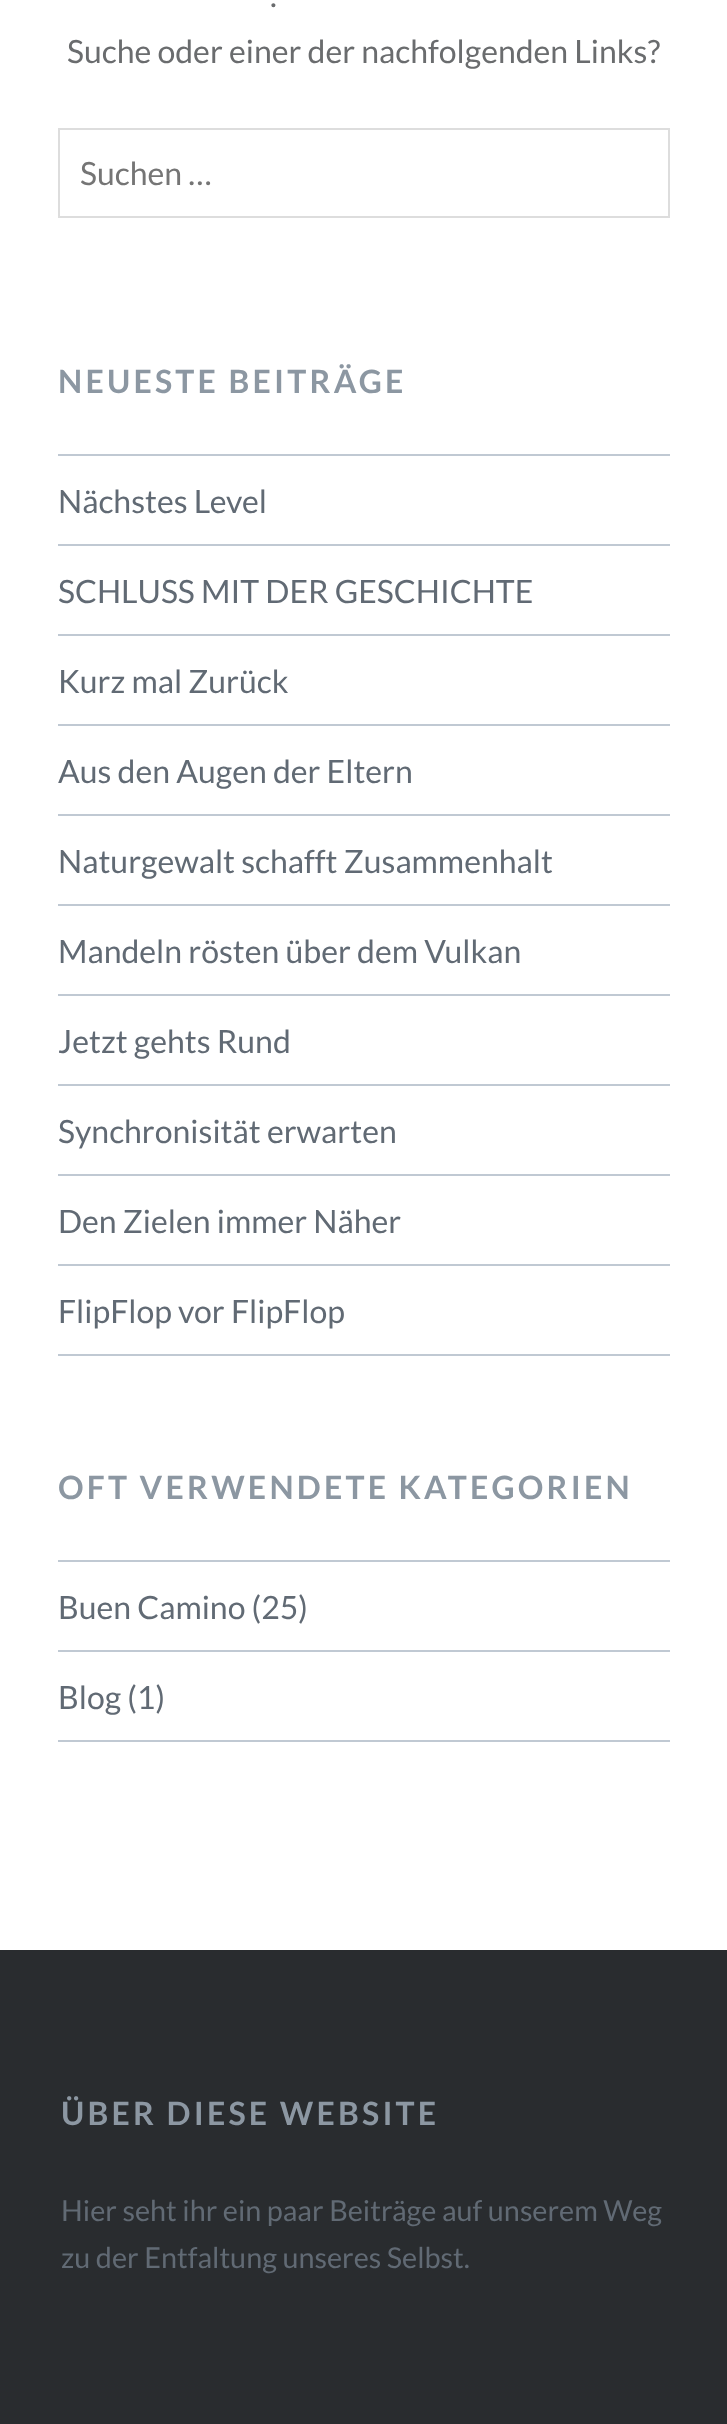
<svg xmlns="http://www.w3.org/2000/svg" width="727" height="2424">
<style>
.a{font:32px Lato;fill:#6a6c6e}
.b{font:32px Lato;fill:#757575}
.c{font:bold 32px Lato;letter-spacing:3.2px;fill:#8c97a2}
.d{font:32px Lato;fill:#616a74}
.e{font:28.8px Lato;fill:#616a74}
</style>
<rect width="100%" height="100%" fill="#fff"/>
<path fill="none" stroke="#ddd" stroke-width="2" d="M59 129h610v88H59z"/>
<path fill="#c0c9d3" d="M58 454h612v2H58z"/>
<path fill="#c0c9d3" d="M58 544h612v2H58z"/>
<path fill="#c0c9d3" d="M58 634h612v2H58z"/>
<path fill="#c0c9d3" d="M58 724h612v2H58z"/>
<path fill="#c0c9d3" d="M58 814h612v2H58z"/>
<path fill="#c0c9d3" d="M58 904h612v2H58z"/>
<path fill="#c0c9d3" d="M58 994h612v2H58z"/>
<path fill="#c0c9d3" d="M58 1084h612v2H58z"/>
<path fill="#c0c9d3" d="M58 1174h612v2H58z"/>
<path fill="#c0c9d3" d="M58 1264h612v2H58z"/>
<path fill="#c0c9d3" d="M58 1354h612v2H58z"/>
<path fill="#c0c9d3" d="M58 1560h612v2H58z"/>
<path fill="#c0c9d3" d="M58 1650h612v2H58z"/>
<path fill="#c0c9d3" d="M58 1740h612v2H58z"/>
<path fill="#292c2f" d="M0 1950h727v474H0z"/>
<text class="a" x="270" y="7">.</text>
<text class="a" x="67" y="63">Suche oder einer der nachfolgenden Links?</text>
<text class="b" x="80" y="185">Suchen …</text>
<text class="c" x="58" y="393">NEUESTE BEITRÄGE</text>
<text class="d" x="58" y="513">Nächstes Level</text>
<text class="d" x="58" y="603">SCHLUSS MIT DER GESCHICHTE</text>
<text class="d" x="58" y="693">Kurz mal Zurück</text>
<text class="d" x="58" y="783">Aus den Augen der Eltern</text>
<text class="d" x="58" y="873">Naturgewalt schafft Zusammenhalt</text>
<text class="d" x="58" y="963">Mandeln rösten über dem Vulkan</text>
<text class="d" x="58" y="1053">Jetzt gehts Rund</text>
<text class="d" x="58" y="1143">Synchronisität erwarten</text>
<text class="d" x="58" y="1233">Den Zielen immer Näher</text>
<text class="d" x="58" y="1323">FlipFlop vor FlipFlop</text>
<text class="c" x="58" y="1499">OFT VERWENDETE KATEGORIEN</text>
<text class="d" x="58" y="1619">Buen Camino (25)</text>
<text class="d" x="58" y="1709">Blog (1)</text>
<text class="c" x="61" y="2125">ÜBER DIESE WEBSITE</text>
<text class="e" x="61" y="2221">Hier seht ihr ein paar Beiträge auf unserem Weg</text>
<text class="e" x="61" y="2268">zu der Entfaltung unseres Selbst.</text>
</svg>
